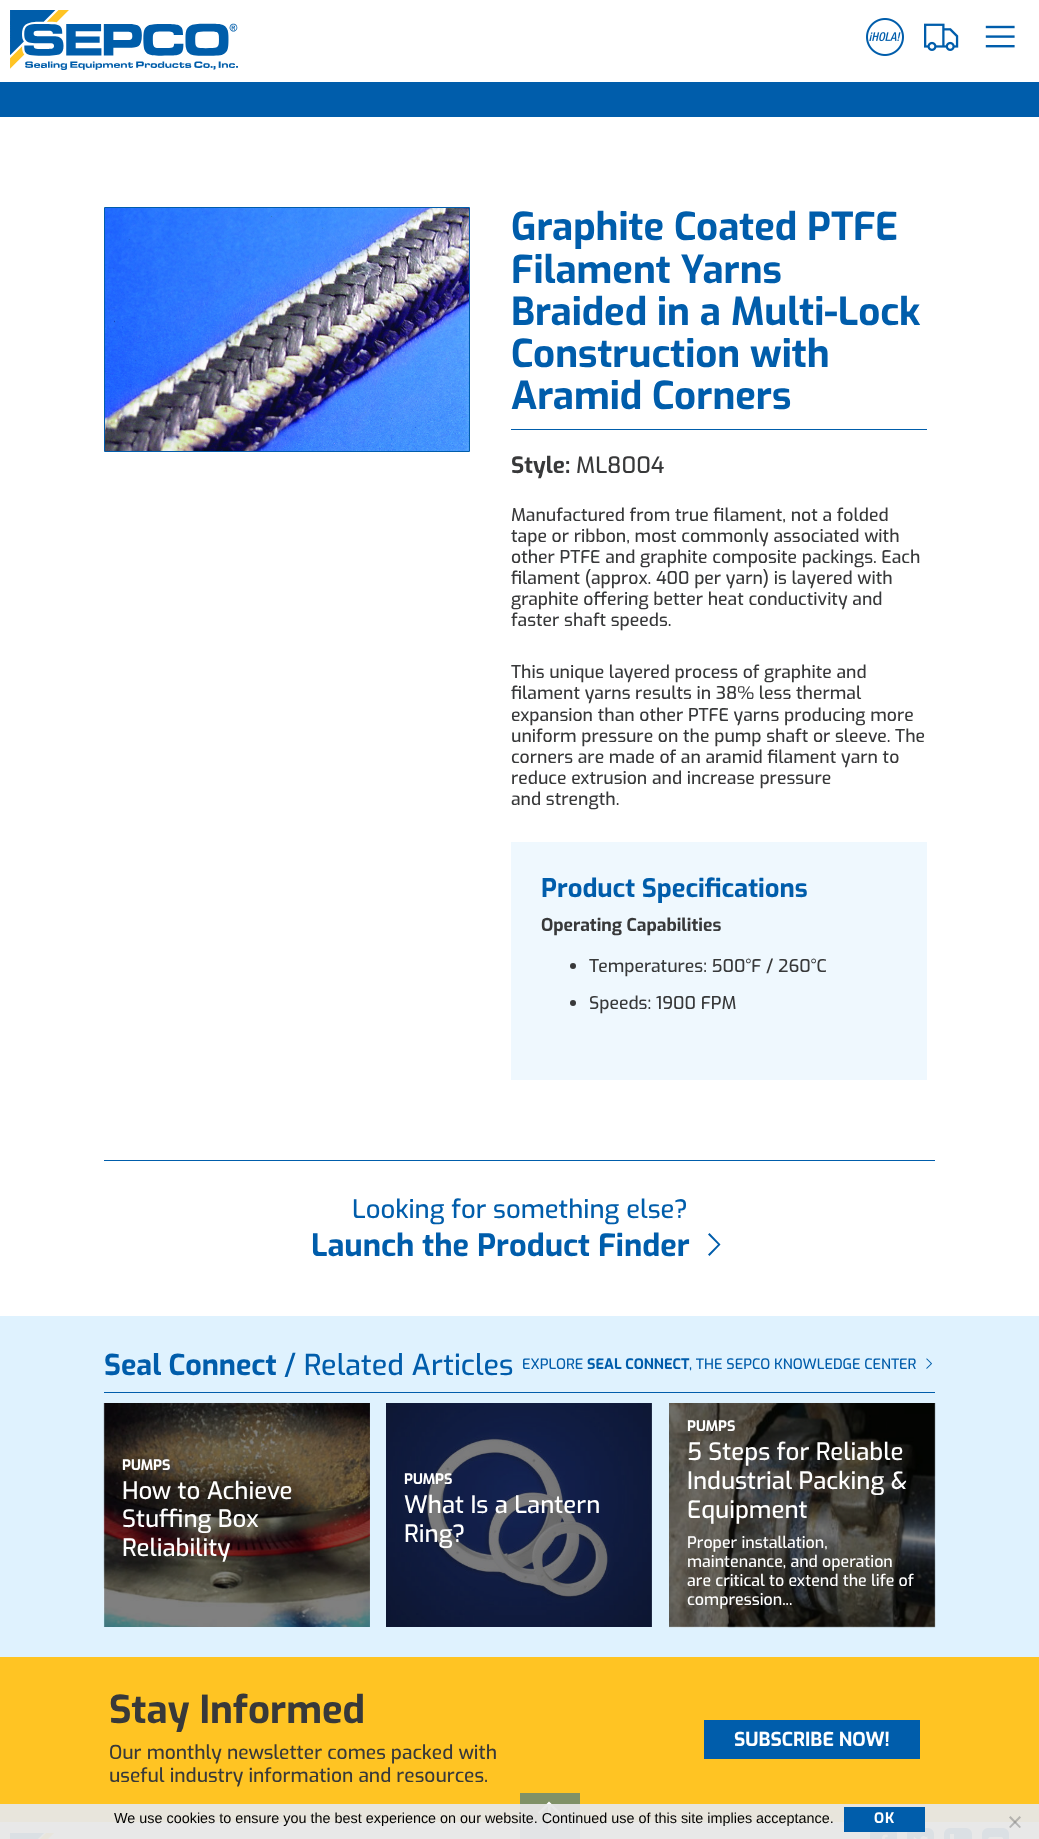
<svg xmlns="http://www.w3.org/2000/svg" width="1039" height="1839">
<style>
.a{font:bold 38.4px Exo;fill:#005dab}
.b{font:bold 22.5px Exo;fill:#38393a}
.c{font:500 22.5px Exo;fill:#38393a}
.d{font:500 17.6px Exo;fill:#38393a}
.e{font:bold 25.6px Exo;fill:#005dab}
.f{font:bold 17.6px Exo;fill:#38393a}
.g{font:500 25.6px Exo;fill:#005dab}
.h{font:bold 30.75px Exo;fill:#005dab}
.i{font:bold 28.75px Exo;fill:#005dab}
.j{font:500 28.75px Exo;fill:#005dab}
.k{font:500 14.4px Exo;fill:#005dab}
.l{font:bold 14.4px Exo;fill:#005dab}
.m{font:bold 14.4px Exo;fill:#fff}
.n{font:500 24px Exo;fill:#fff}
.o{font:500 16px Exo;fill:#fff}
.p{font:bold 38.4px Exo;fill:#38393a}
.q{font:500 19.2px Exo;fill:#38393a}
.r{font:bold 19.2px Exo;fill:#fff}
.s{font:14.4px Liberation Sans;fill:#000}
.t{font:bold 14.4px Exo;letter-spacing:1px;fill:#fff}
</style>
<rect width="100%" height="100%" fill="#fff"/>
<path fill="#80aed5" d="M520 1822h60v17H520z"/>
<image href="1.png" x="10" y="10" width="228" height="60"/>
<image href="2.png" x="866" y="18" width="38" height="38"/>
<image href="3.png" x="924" y="23" width="35" height="28"/>
<image href="4.png" x="985" y="25" width="30" height="23"/>
<path fill="#005dab" d="M0 82h1039v35H0z"/>
<path fill="none" stroke="#005dab" d="M104.5 207.5h365v244H104.5z"/>
<image href="5.png" x="105" y="208" width="364" height="243"/>
<path fill="#005dab" d="M511 429h416v1H511z"/>
<path fill="#eff8fe" d="M511 842h416v238H511z"/>
<circle fill="#38393a" cx="573" cy="966" r="3"/>
<circle fill="#38393a" cx="573" cy="1003" r="3"/>
<path fill="#005dab" d="M104 1160h831v1H104z"/>
<path fill="#005dab" d="M709.5 1233l11 11.5l-11 11.5l-1.5-1.5l10-10l-10-10z"/>
<path fill="#dff2fe" d="M0 1316h1039v341H0z"/>
<path fill="#005dab" d="M104 1392h831v1H104z"/>
<image href="6.png" x="926" y="1358" width="6" height="11"/>
<image href="7.png" x="103" y="1403" width="267" height="224"/>
<image href="8.png" x="386" y="1403" width="266" height="224"/>
<image href="9.png" x="669" y="1403" width="267" height="225"/>
<path fill="#ffc423" d="M0 1657h1039v165H0z"/>
<path fill="#809167" d="M520 1793h60v29H520z"/>
<path fill="#005dab" d="M704 1720h216v39H704z"/>
<path fill="#fff" d="M549 1801.5l11.5 11l-2 1.5l-8-8v24h-2.5v-24l-8 8l-2-1.5z"/>
<image href="10.png" x="10" y="1833" width="44" height="6"/>
<rect fill="#005dab" x="870" y="1828" width="27" height="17" rx="6"/>
<image href="11.png" x="882" y="1834" width="6" height="5"/>
<rect fill="#005dab" x="907" y="1828" width="27" height="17" rx="6"/>
<image href="12.png" x="913" y="1836" width="16" height="3"/>
<rect fill="#005dab" x="944" y="1828" width="28" height="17" rx="6"/>
<path fill="#fff" d="M950 1834h4v5H950z"/>
<rect fill="#005dab" x="982" y="1828" width="27" height="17" rx="6"/>
<image href="13.png" x="988" y="1836" width="16" height="3"/>
<path fill="#e7e7e7f2" d="M0 1804h1039v35H0z"/>
<path fill="#005dab" d="M844 1807h81v25H844z"/>
<path fill="#80808080" d="M1019.5 1816l1.5 1.5l-10.5 10.5l-1.5-1z"/>
<path fill="#80808080" d="M1009 1817.5l1.5-1.5l10.5 11l-1.5 1z"/>
<text class="a" x="511" y="240">Graphite Coated PTFE</text>
<text class="a" x="511" y="283">Filament Yarns</text>
<text class="a" x="511" y="325">Braided in a Multi-Lock</text>
<text class="a" x="511" y="367">Construction with</text>
<text class="a" x="511" y="409">Aramid Corners</text>
<text class="b" x="511" y="473">Style:</text>
<text class="c" x="576" y="473">ML8004</text>
<text class="d" x="511" y="521">Manufactured from true filament, not a folded</text>
<text class="d" x="511" y="542">tape or ribbon, most commonly associated with</text>
<text class="d" x="511" y="563">other PTFE and graphite composite packings. Each</text>
<text class="d" x="511" y="584">filament (approx. 400 per yarn) is layered with</text>
<text class="d" x="511" y="605">graphite offering better heat conductivity and</text>
<text class="d" x="511" y="626">faster shaft speeds.</text>
<text class="d" x="511" y="678">This unique layered process of graphite and</text>
<text class="d" x="511" y="699">filament yarns results in 38% less thermal</text>
<text class="d" x="511" y="721">expansion than other PTFE yarns producing more</text>
<text class="d" x="511" y="742">uniform pressure on the pump shaft or sleeve. The</text>
<text class="d" x="511" y="763">corners are made of an aramid filament yarn to</text>
<text class="d" x="511" y="784">reduce extrusion and increase pressure</text>
<text class="d" x="511" y="805">and strength.</text>
<text class="e" x="541" y="897">Product Specifications</text>
<text class="f" x="541" y="931">Operating Capabilities</text>
<text class="d" x="589" y="972">Temperatures: 500°F / 260°C</text>
<text class="d" x="589" y="1009">Speeds: 1900 FPM</text>
<text class="g" x="352" y="1218">Looking for something else?</text>
<text class="h" x="311" y="1256">Launch the Product Finder</text>
<text class="i" x="104" y="1375">Seal Connect</text>
<text class="j" x="284" y="1375">/ Related Articles</text>
<text class="k" x="522" y="1369">EXPLORE</text>
<text class="l" x="587" y="1369">SEAL CONNECT</text>
<text class="k" x="689" y="1369">, THE SEPCO KNOWLEDGE CENTER</text>
<text class="m" x="122" y="1470">PUMPS</text>
<text class="n" x="122" y="1499">How to Achieve</text>
<text class="n" x="122" y="1527">Stuffing Box</text>
<text class="n" x="122" y="1556">Reliability</text>
<text class="m" x="404" y="1484">PUMPS</text>
<text class="n" x="404" y="1513">What Is a Lantern</text>
<text class="n" x="404" y="1542">Ring?</text>
<text class="m" x="687" y="1431">PUMPS</text>
<text class="n" x="687" y="1460">5 Steps for Reliable</text>
<text class="n" x="687" y="1489">Industrial Packing &amp;</text>
<text class="n" x="687" y="1518">Equipment</text>
<text class="o" x="687" y="1548">Proper installation,</text>
<text class="o" x="687" y="1567">maintenance, and operation</text>
<text class="o" x="687" y="1586">are critical to extend the life of</text>
<text class="o" x="687" y="1605">compression...</text>
<text class="p" x="109" y="1723">Stay Informed</text>
<text class="q" x="109" y="1759">Our monthly newsletter comes packed with</text>
<text class="q" x="109" y="1782">useful industry information and resources.</text>
<text class="r" x="734" y="1746">SUBSCRIBE NOW!</text>
<text class="s" x="114" y="1823">We use cookies to ensure you the best experience on our website. Continued use of this site implies acceptance.</text>
<text class="t" x="874" y="1823">OK</text>
</svg>
